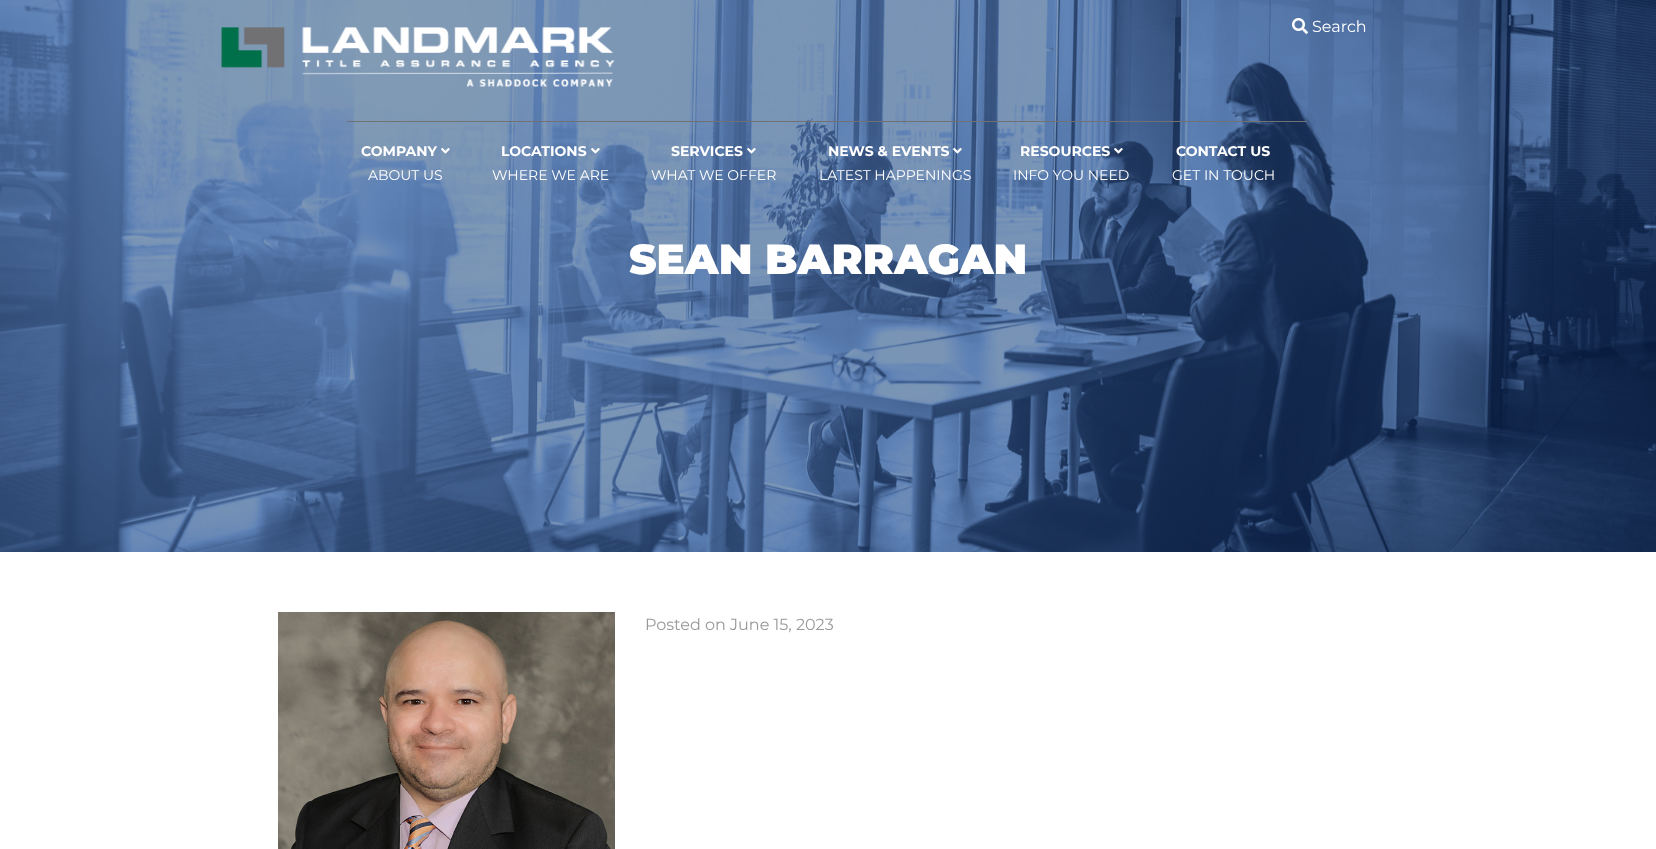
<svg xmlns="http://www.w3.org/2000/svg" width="1656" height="849">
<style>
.a{font:16px Montserrat;fill:#fff}
.b{font:bold 14px Montserrat;fill:#fff}
.c{font:14px Montserrat;fill:#fff}
.d{font:900 42px Montserrat;fill:#fff}
.e{font:16px Montserrat;fill:#999}
</style>
<rect width="100%" height="100%" fill="#fff"/>
<image href="8.png" x="0" y="0" width="1656" height="552"/>
<image href="1.png" x="221" y="27" width="394" height="60"/>
<image href="2.png" x="1292" y="18" width="16" height="16"/>
<path fill="#717174" d="M347 121h960v1H347z"/>
<image href="3.png" x="441" y="148" width="9" height="6"/>
<image href="4.png" x="591" y="148" width="9" height="6"/>
<image href="5.png" x="747" y="148" width="9" height="6"/>
<image href="6.png" x="953" y="148" width="9" height="6"/>
<image href="7.png" x="1114" y="148" width="9" height="6"/>
<image href="9.png" x="278" y="612" width="337" height="237"/>
<text class="a" x="1312" y="32">Search</text>
<text class="b" x="361" y="156">COMPANY</text>
<text class="c" x="368" y="180">ABOUT US</text>
<text class="b" x="501" y="156">LOCATIONS</text>
<text class="c" x="492" y="180">WHERE WE ARE</text>
<text class="b" x="671" y="156">SERVICES</text>
<text class="c" x="651" y="180">WHAT WE OFFER</text>
<text class="b" x="828" y="156">NEWS &amp; EVENTS</text>
<text class="c" x="819" y="180">LATEST HAPPENINGS</text>
<text class="b" x="1020" y="156">RESOURCES</text>
<text class="c" x="1013" y="180">INFO YOU NEED</text>
<text class="b" x="1176" y="156">CONTACT US</text>
<text class="c" x="1172" y="180">GET IN TOUCH</text>
<text class="d" x="629" y="274">SEAN BARRAGAN</text>
<text class="e" x="645" y="630">Posted on June 15, 2023</text>
</svg>
